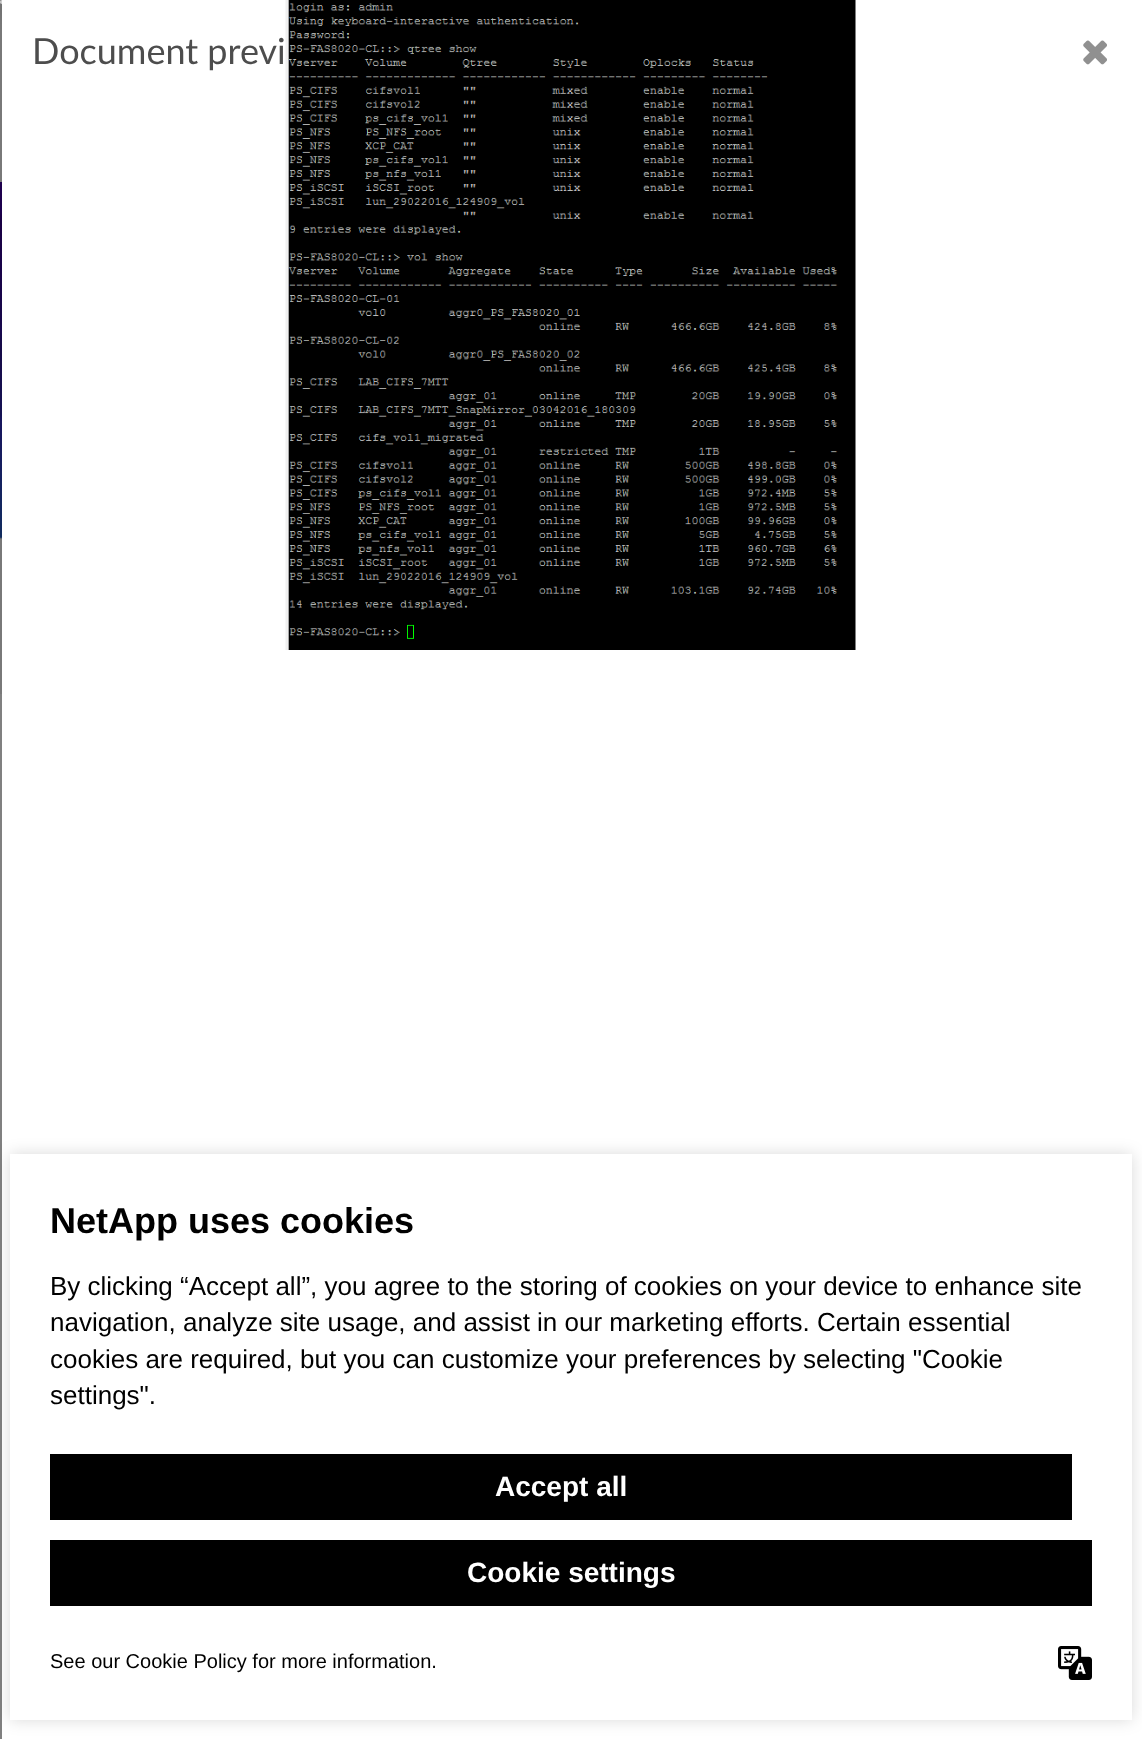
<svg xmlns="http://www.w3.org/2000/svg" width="1142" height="1739">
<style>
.a{font:36px Lato;fill:#4d4d4d}
.b{font:bold 36px Liberation Sans;fill:#000}
.c{font:26px Liberation Sans;fill:#000}
.d{font:bold 28px Liberation Sans;fill:#fff}
.e{font:20px Liberation Sans;fill:#000}
</style>
<rect width="100%" height="100%" fill="#808080"/>
<path fill="#797979" d="M0 0h2v182H0z"/>
<path fill="#797979" d="M0 537h2v157H0z"/>
<image href="1.png" x="0" y="182" width="2" height="357"/>
<rect fill="#00000080" filter="blur(9px)" y="6" width="1142" height="4" rx="2"/>
<rect fill="#d1d1d1" width="1142" height="4" rx="2"/>
<path fill="#fff" d="M2 0h1140v1739H2z"/>
<image href="2.png" x="285" y="0" width="571" height="650"/>
<image href="3.png" x="1083" y="40" width="24" height="25"/>
<path fill="#00000026" filter="blur(8px)" d="M10 1154h1122v566H10z"/>
<path fill="#fff" d="M10 1154h1122v566H10z"/>
<path fill="#000" d="M50 1454h1022v66H50z"/>
<path fill="#000" d="M50 1540h1042v66H50z"/>
<image href="4.png" x="1058" y="1646" width="34" height="34"/>
<text class="a" x="32" y="64">Document previ</text>
<text class="b" x="50" y="1233">NetApp uses cookies</text>
<text class="c" x="50" y="1295">By clicking “Accept all”, you agree to the storing of cookies on your device to enhance site</text>
<text class="c" x="50" y="1331">navigation, analyze site usage, and assist in our marketing efforts. Certain essential</text>
<text class="c" x="50" y="1368">cookies are required, but you can customize your preferences by selecting "Cookie</text>
<text class="c" x="50" y="1404">settings".</text>
<text class="d" x="495" y="1496">Accept all</text>
<text class="d" x="467" y="1582">Cookie settings</text>
<text class="e" x="50" y="1668">See our Cookie Policy for more information.</text>
</svg>
